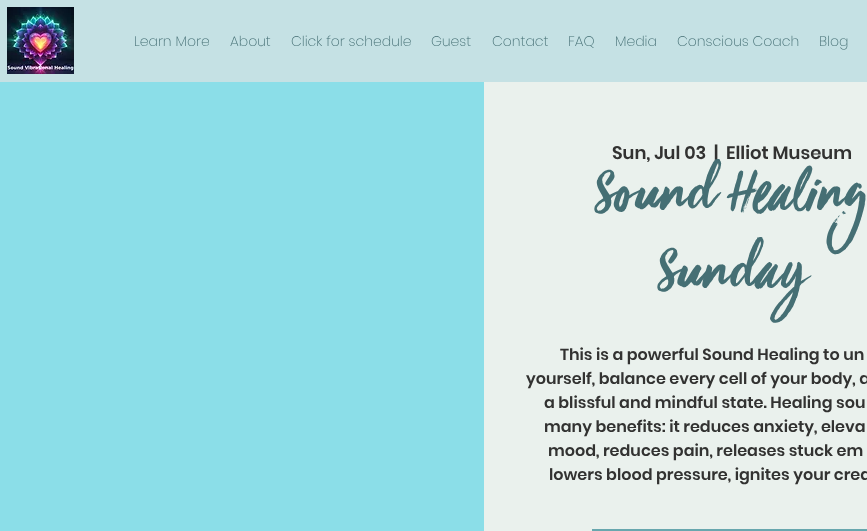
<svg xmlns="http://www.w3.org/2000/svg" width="867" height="531">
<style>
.a{font:200 14px Poppins;fill:#456f74}
.b{font:600 18px Poppins;fill:#323231}
.c{font:65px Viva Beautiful;fill:#456f74}
.d{font:600 16px Poppins;fill:#323231}
</style>
<rect width="100%" height="100%" fill="#8bdee8"/>
<path fill="#c5e1e4" d="M0 0h867v82H0z"/>
<image href="1.png" x="7" y="7" width="67" height="67"/>
<path fill="#eaf1ed" d="M484 82h383v449H484z"/>
<path fill="#68a7ae" d="M592 529h275v2H592z"/>
<text class="a" x="134" y="46">Learn More</text>
<text class="a" x="230" y="46">About</text>
<text class="a" x="291" y="46">Click for schedule</text>
<text class="a" x="431" y="46">Guest</text>
<text class="a" x="492" y="46">Contact</text>
<text class="a" x="568" y="46">FAQ</text>
<text class="a" x="615" y="46">Media</text>
<text class="a" x="677" y="46">Conscious Coach</text>
<text class="a" x="819" y="46">Blog</text>
<text class="b" x="612" y="159">Sun, Jul 03</text>
<text class="b" x="714" y="159">|</text>
<text class="b" x="726" y="159">Elliot Museum</text>
<text class="c" x="595" y="209">Sound Healing</text>
<text class="c" x="658" y="287">Sunday</text>
<text class="d" x="560" y="360">This is a powerful Sound Healing to un</text>
<text class="d" x="526" y="384">yourself, balance every cell of your body, a</text>
<text class="d" x="544" y="408">a blissful and mindful state. Healing sou</text>
<text class="d" x="544" y="432">many benefits: it reduces anxiety, eleva</text>
<text class="d" x="548" y="456">mood, reduces pain, releases stuck em</text>
<text class="d" x="549" y="480">lowers blood pressure, ignites your crea</text>
</svg>
